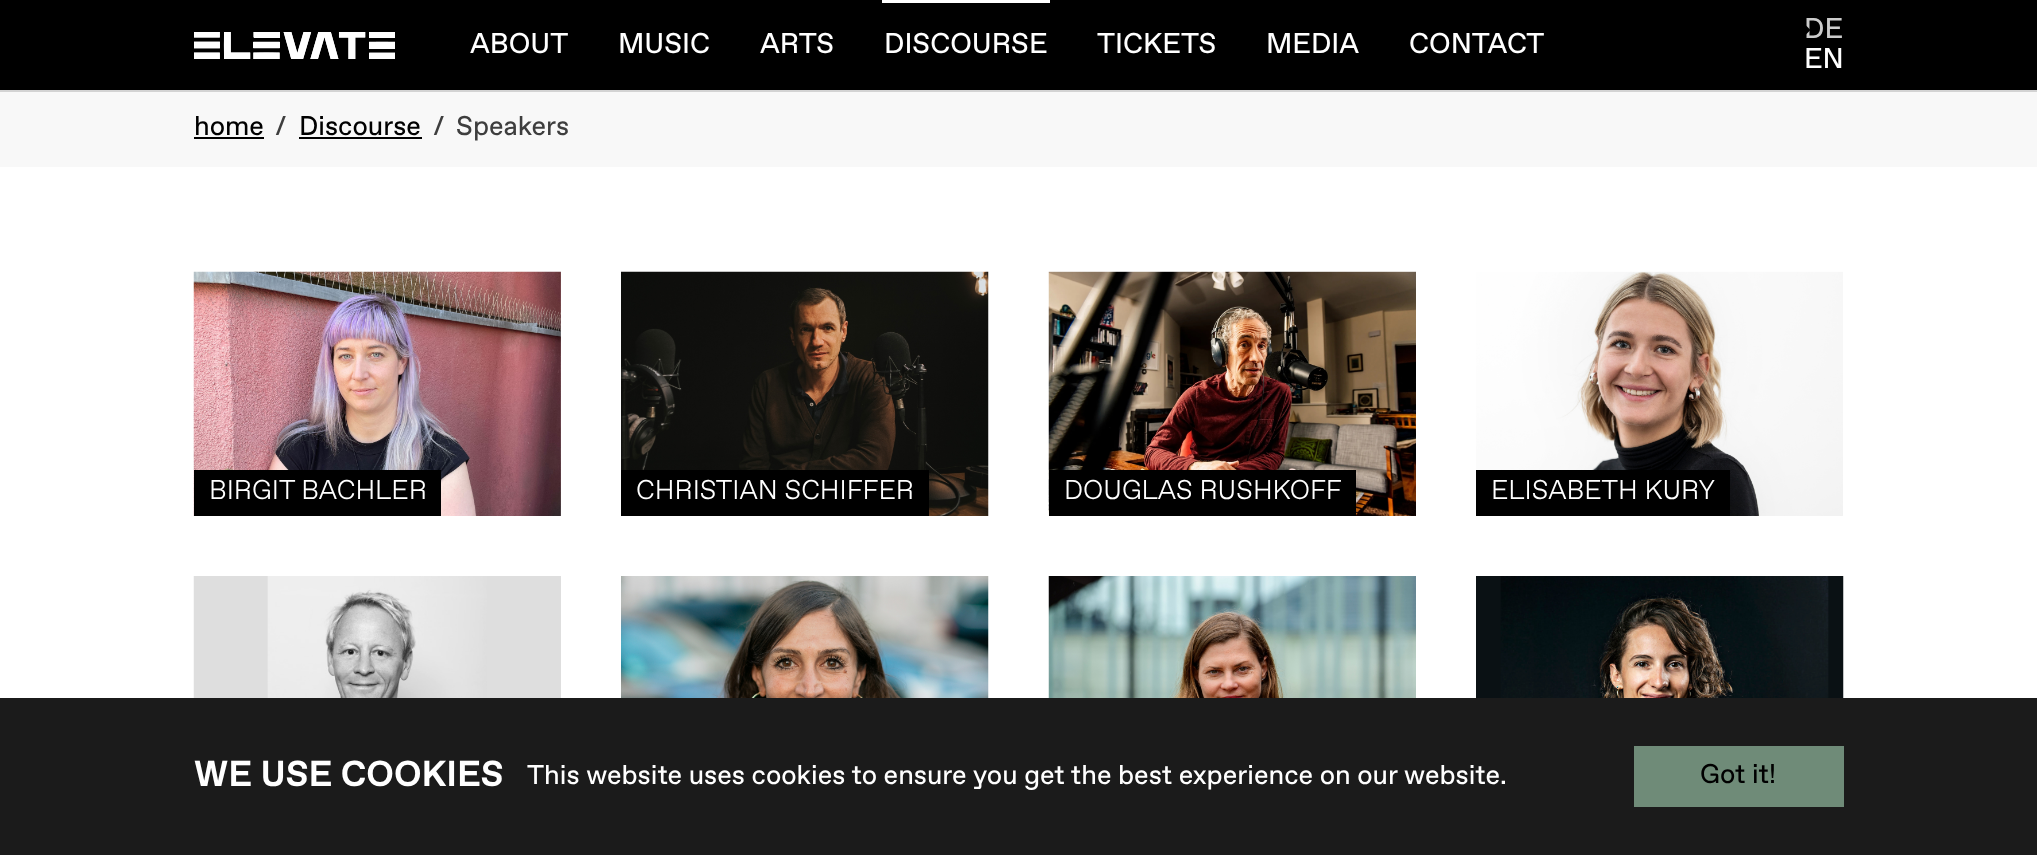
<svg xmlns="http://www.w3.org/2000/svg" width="2037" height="855">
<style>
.a{font:28.5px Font;fill:#fff}
.b{font:28.5px Font;fill:#ccc}
.c{font:27px Font;fill:#000}
.d{font:27px Font;fill:#3e3e3e}
.e{font:300 27px Font;fill:#fff}
.f{font:bold 36px Font;fill:#fff}
.g{font:27px Font;fill:#fff}
</style>
<rect width="100%" height="100%" fill="#fff"/>
<path fill="#d3d3d3" d="M0 90h2037v2H0z"/>
<path fill="#000" d="M0 0h2037v90H0z"/>
<image href="1.png" x="194" y="32" width="201" height="27"/>
<path fill="#fff" d="M882 0h168v3H882z"/>
<path fill="#f8f8f8" d="M0 92h2037v75H0z"/>
<path fill="#000" d="M194 137h70v2H194z"/>
<path fill="#000" d="M299 137h123v2H299z"/>
<image href="2.png" x="193" y="271" width="368" height="245"/>
<path fill="#000" d="M194 470h247v46H194z"/>
<image href="3.png" x="621" y="271" width="368" height="245"/>
<path fill="#000" d="M621 470h308v46H621z"/>
<image href="4.png" x="1048" y="271" width="368" height="245"/>
<path fill="#000" d="M1049 470h307v46H1049z"/>
<image href="5.png" x="1476" y="271" width="367" height="245"/>
<path fill="#000" d="M1476 470h254v46H1476z"/>
<image href="6.png" x="193" y="576" width="368" height="122"/>
<image href="7.png" x="621" y="576" width="368" height="122"/>
<image href="8.png" x="1048" y="576" width="368" height="122"/>
<image href="9.png" x="1476" y="576" width="368" height="122"/>
<path fill="#1b1b1b" d="M0 698h2037v157H0z"/>
<path fill="#6f8b78" d="M1634 746h210v61H1634z"/>
<text class="a" x="470" y="53">ABOUT</text>
<text class="a" x="618" y="53">MUSIC</text>
<text class="a" x="760" y="53">ARTS</text>
<text class="a" x="884" y="53">DISCOURSE</text>
<text class="a" x="1097" y="53">TICKETS</text>
<text class="a" x="1266" y="53">MEDIA</text>
<text class="a" x="1409" y="53">CONTACT</text>
<text class="b" x="1804" y="38">DE</text>
<path fill="#000" d="M1804.5 36v-12l6 6z"/>
<text class="a" x="1804" y="68">EN</text>
<text class="c" x="194" y="135">home</text>
<text class="d" x="275" y="135">/</text>
<text class="c" x="299" y="135">Discourse</text>
<text class="d" x="433" y="135">/</text>
<text class="d" x="456" y="135">Speakers</text>
<text class="e" x="209" y="499">BIRGIT BACHLER</text>
<text class="e" x="636" y="499">CHRISTIAN SCHIFFER</text>
<text class="e" x="1064" y="499">DOUGLAS RUSHKOFF</text>
<text class="e" x="1491" y="499">ELISABETH KURY</text>
<text class="f" x="194" y="786">WE USE COOKIES</text>
<text class="g" x="527" y="784">This website uses cookies to ensure you get the best experience on our website.</text>
<text class="c" x="1700" y="783">Got it!</text>
</svg>
